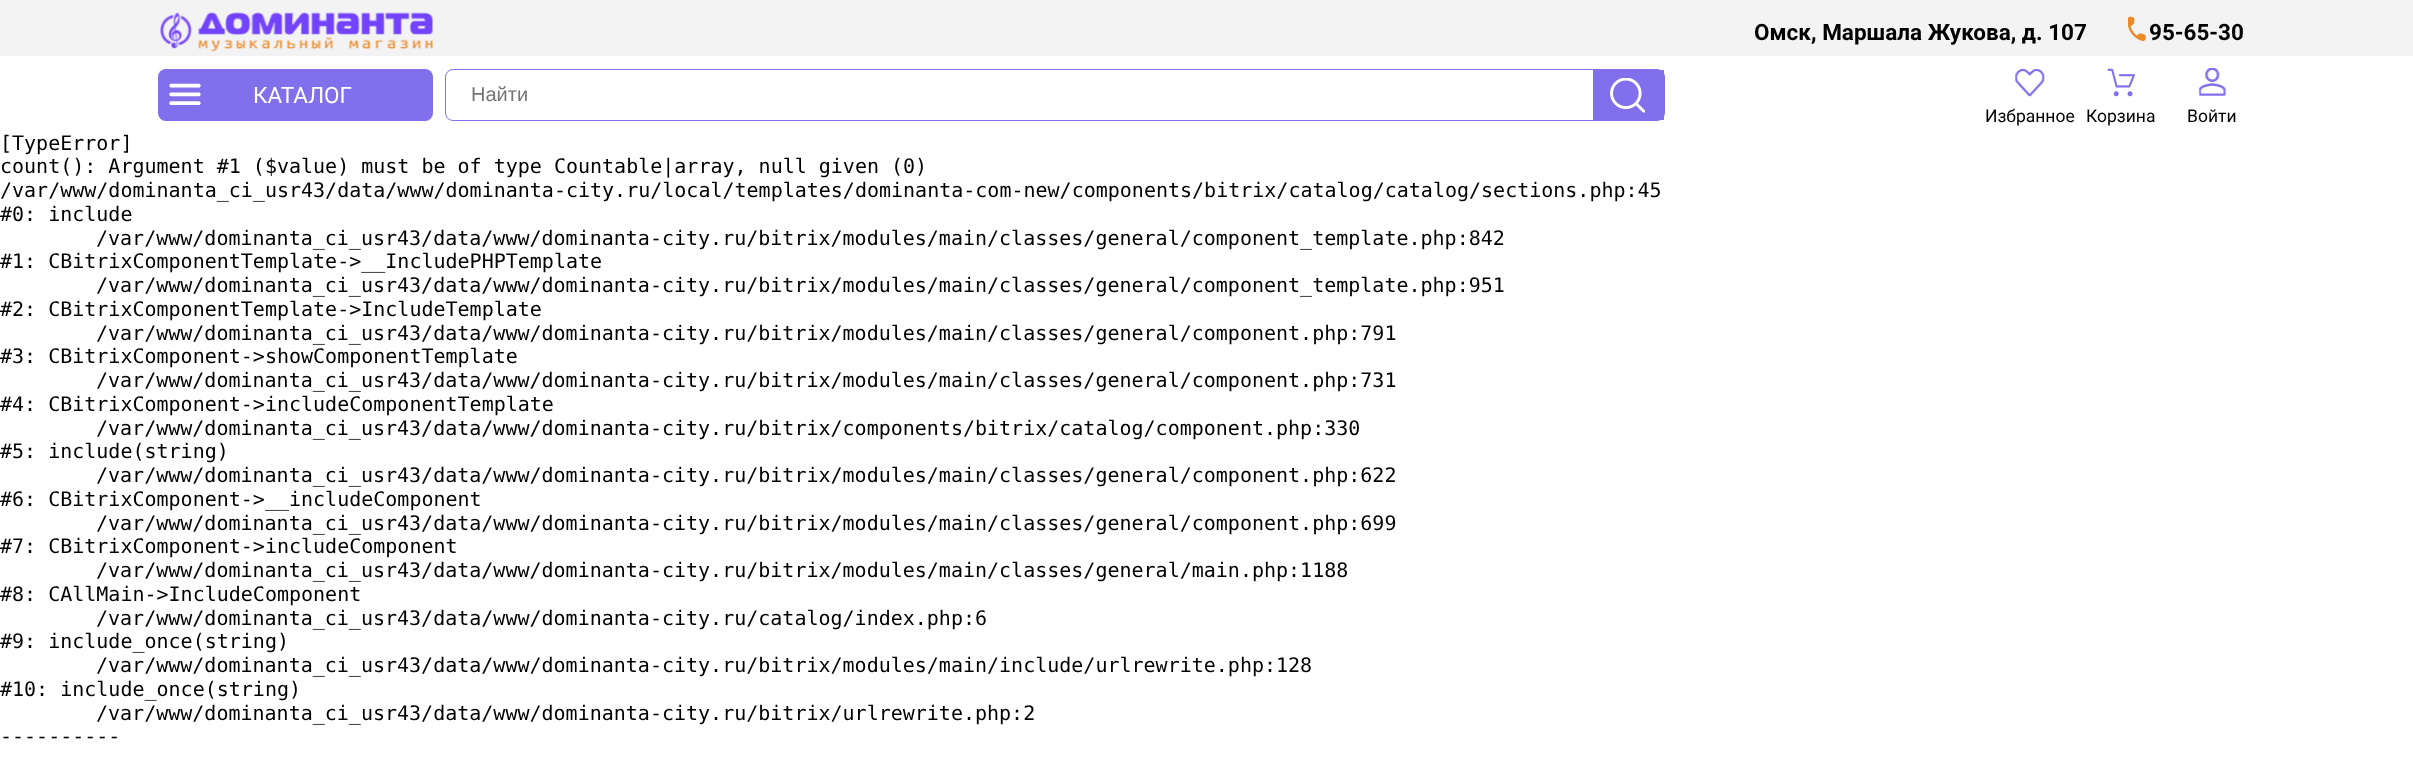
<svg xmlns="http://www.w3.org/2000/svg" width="2413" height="760">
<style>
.a{font:bold 22.5px Roboto;fill:#000}
.b{font:22.5px Roboto;fill:#fff}
.c{font:20px Liberation Sans;fill:#757575}
.d{font:17.5px Roboto;fill:#000}
.e{font:20px DejaVu Sans Mono;fill:#000}
</style>
<rect width="100%" height="100%" fill="#fff"/>
<path fill="#f3f3f3" d="M0 0h2413v56H0z"/>
<image href="1.png" x="160" y="12" width="273" height="40"/>
<image href="2.png" x="2128" y="16" width="18" height="25"/>
<rect fill="#826feb" x="158" y="69" width="275" height="52" rx="8"/>
<image href="3.png" x="169" y="83" width="32" height="22"/>
<rect fill="none" stroke="#826feb" x="445.5" y="69.5" width="1219" height="51" rx="7.5"/>
<path fill="#826feb" d="M1593 70h71v50H1593z"/>
<image href="4.png" x="1610" y="78" width="35" height="35"/>
<image href="5.png" x="2015" y="69" width="30" height="28"/>
<image href="6.png" x="2107" y="68" width="28" height="29"/>
<image href="7.png" x="2199" y="68" width="28" height="28"/>
<text class="a" x="1754" y="40">Омск, Маршала Жукова, д. 107</text>
<text class="a" x="2149" y="40">95-65-30</text>
<text class="b" x="253" y="103">КАТАЛОГ</text>
<text class="c" x="471" y="101">Найти</text>
<text class="d" x="1985" y="122">Избранное</text>
<text class="d" x="2086" y="122">Корзина</text>
<text class="d" x="2187" y="122">Войти</text>
<text class="e" x="0" y="150">[TypeError]</text>
<text class="e" x="0" y="173">count(): Argument #1 ($value) must be of type Countable|array, null given (0)</text>
<text class="e" x="0" y="197">/var/www/dominanta_ci_usr43/data/www/dominanta-city.ru/local/templates/dominanta-com-new/components/bitrix/catalog/catalog/sections.php:45</text>
<text class="e" x="0" y="221">#0: include</text>
<text class="e" x="96" y="245">/var/www/dominanta_ci_usr43/data/www/dominanta-city.ru/bitrix/modules/main/classes/general/component_template.php:842</text>
<text class="e" x="0" y="268">#1: CBitrixComponentTemplate-&gt;__IncludePHPTemplate</text>
<text class="e" x="96" y="292">/var/www/dominanta_ci_usr43/data/www/dominanta-city.ru/bitrix/modules/main/classes/general/component_template.php:951</text>
<text class="e" x="0" y="316">#2: CBitrixComponentTemplate-&gt;IncludeTemplate</text>
<text class="e" x="96" y="340">/var/www/dominanta_ci_usr43/data/www/dominanta-city.ru/bitrix/modules/main/classes/general/component.php:791</text>
<text class="e" x="0" y="363">#3: CBitrixComponent-&gt;showComponentTemplate</text>
<text class="e" x="96" y="387">/var/www/dominanta_ci_usr43/data/www/dominanta-city.ru/bitrix/modules/main/classes/general/component.php:731</text>
<text class="e" x="0" y="411">#4: CBitrixComponent-&gt;includeComponentTemplate</text>
<text class="e" x="96" y="435">/var/www/dominanta_ci_usr43/data/www/dominanta-city.ru/bitrix/components/bitrix/catalog/component.php:330</text>
<text class="e" x="0" y="458">#5: include(string)</text>
<text class="e" x="96" y="482">/var/www/dominanta_ci_usr43/data/www/dominanta-city.ru/bitrix/modules/main/classes/general/component.php:622</text>
<text class="e" x="0" y="506">#6: CBitrixComponent-&gt;__includeComponent</text>
<text class="e" x="96" y="530">/var/www/dominanta_ci_usr43/data/www/dominanta-city.ru/bitrix/modules/main/classes/general/component.php:699</text>
<text class="e" x="0" y="553">#7: CBitrixComponent-&gt;includeComponent</text>
<text class="e" x="96" y="577">/var/www/dominanta_ci_usr43/data/www/dominanta-city.ru/bitrix/modules/main/classes/general/main.php:1188</text>
<text class="e" x="0" y="601">#8: CAllMain-&gt;IncludeComponent</text>
<text class="e" x="96" y="625">/var/www/dominanta_ci_usr43/data/www/dominanta-city.ru/catalog/index.php:6</text>
<text class="e" x="0" y="648">#9: include_once(string)</text>
<text class="e" x="96" y="672">/var/www/dominanta_ci_usr43/data/www/dominanta-city.ru/bitrix/modules/main/include/urlrewrite.php:128</text>
<text class="e" x="0" y="696">#10: include_once(string)</text>
<text class="e" x="96" y="720">/var/www/dominanta_ci_usr43/data/www/dominanta-city.ru/bitrix/urlrewrite.php:2</text>
<text class="e" x="0" y="743">----------</text>
</svg>
